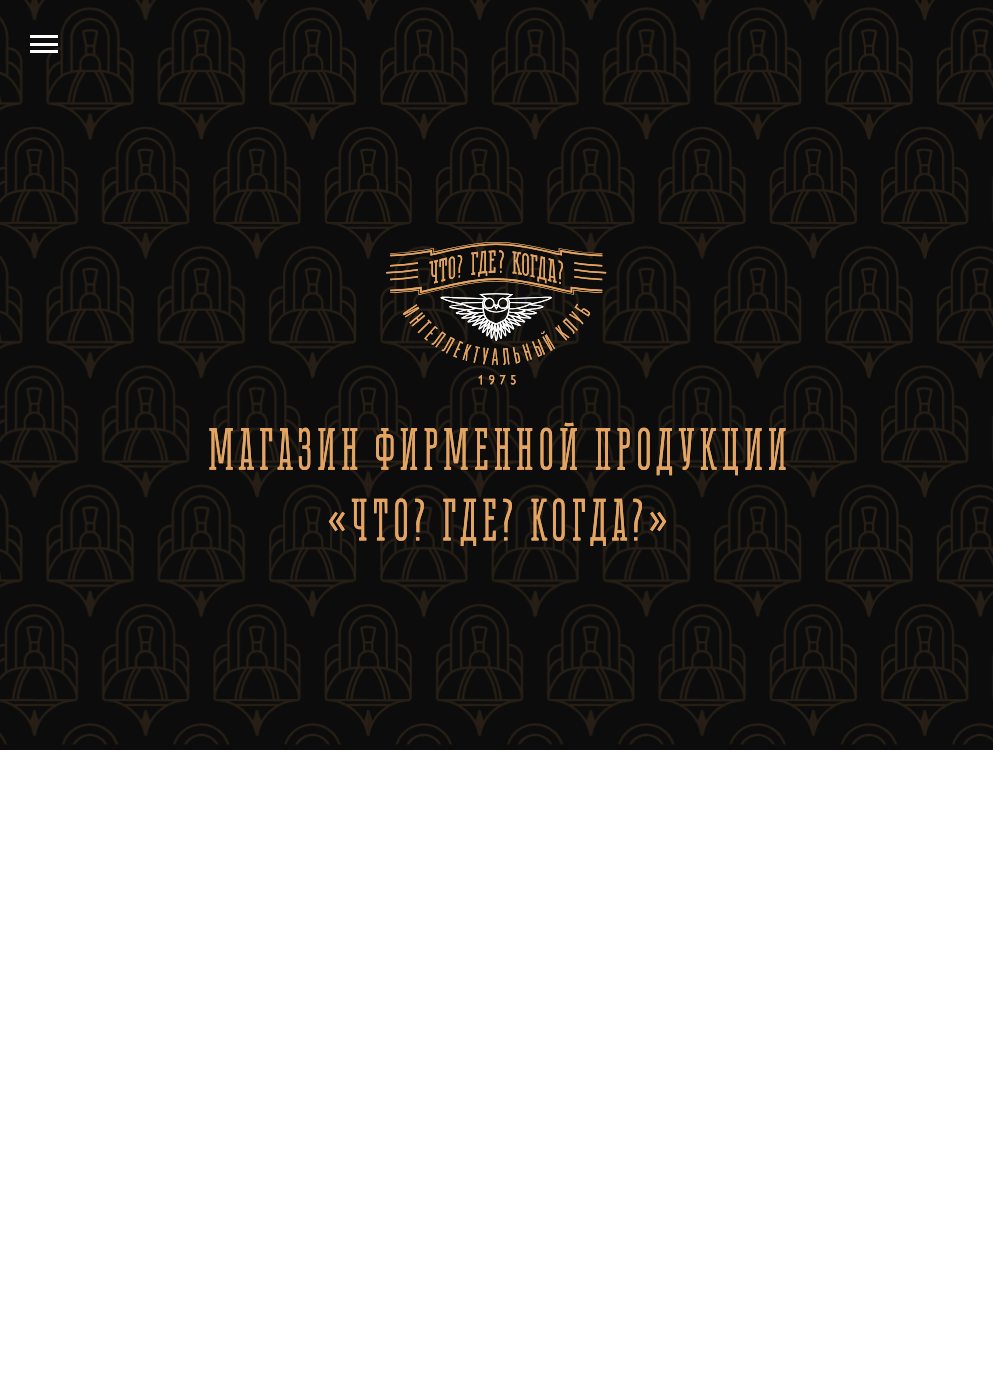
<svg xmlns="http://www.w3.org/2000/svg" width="993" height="1378">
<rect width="100%" height="100%" fill="#fff"/>
<image href="1.png" x="0" y="0" width="993" height="750"/>
<image href="2.png" x="209" y="242" width="577" height="304"/>
<path fill="#fff" d="M30 35h28v3H30z"/>
<path fill="#fff" d="M30 43h28v3H30z"/>
<path fill="#fff" d="M30 50h28v3H30z"/>
</svg>
